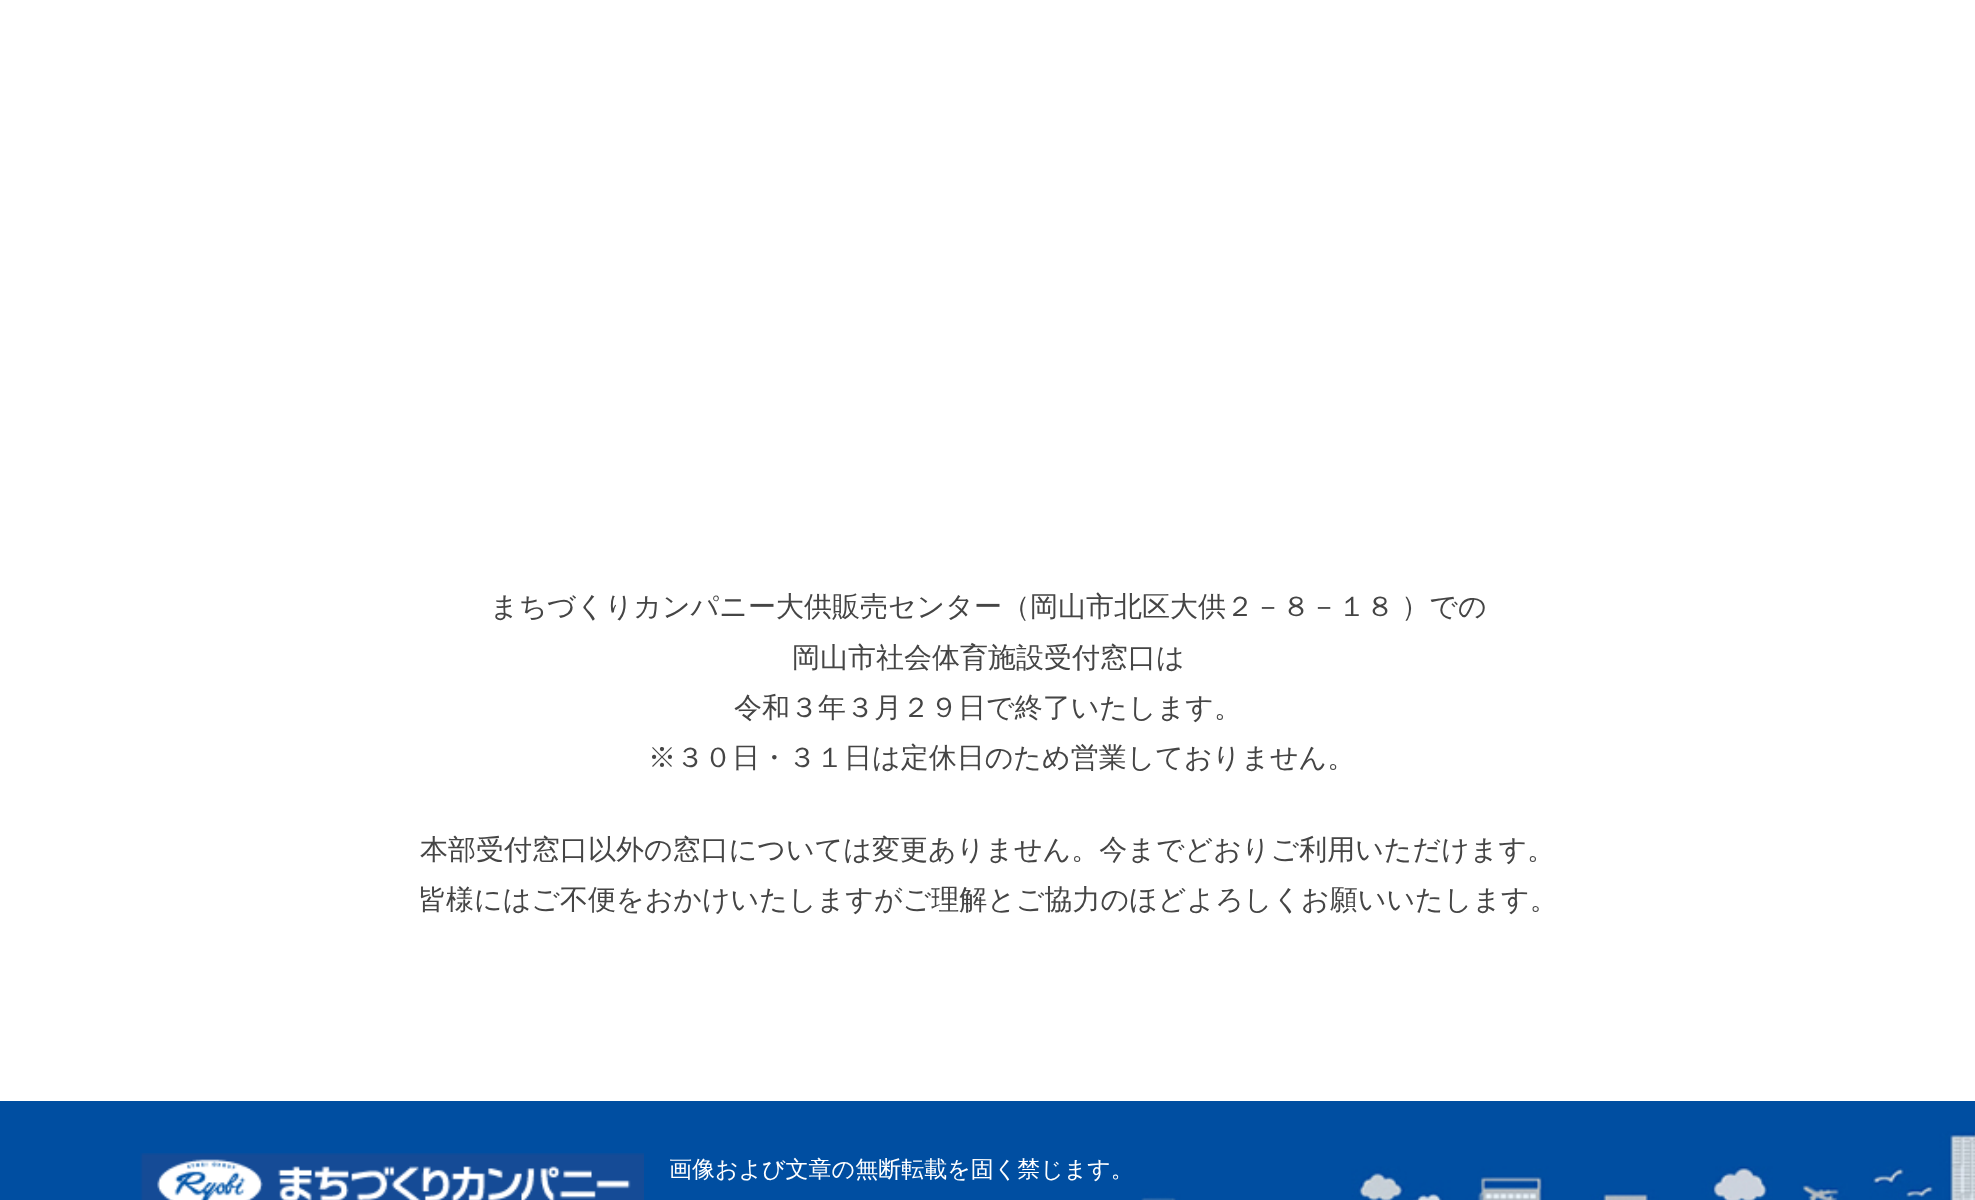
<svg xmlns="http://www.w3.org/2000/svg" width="1975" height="1200">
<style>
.a{font:500 28px WenQuanYi Zen Hei;fill:#454545}
.b{font:500 23px WenQuanYi Zen Hei;fill:#fff}
</style>
<rect width="100%" height="100%" fill="#fff"/>
<path fill="#004ea1" d="M0 1101h1975v99H0z"/>
<image href="1.png" x="1141" y="1131" width="834" height="69"/>
<image href="2.png" x="140" y="1153" width="504" height="47"/>
<text class="a" x="490" y="616" word-spacing="-1">まちづくりカンパニー大供販売センター（岡山市北区大供２－８－１８ ）での</text>
<text class="a" x="792" y="667">岡山市社会体育施設受付窓口は</text>
<text class="a" x="734" y="717">令和３年３月２９日で終了いたします。</text>
<text class="a" x="648" y="767">※３０日・３１日は定休日のため営業しておりません。</text>
<text class="a" x="420" y="859">本部受付窓口以外の窓口については変更ありません。今までどおりご利用いただけます。</text>
<text class="a" x="418" y="909">皆様にはご不便をおかけいたしますがご理解とご協力のほどよろしくお願いいたします。</text>
<text class="b" x="669" y="1177">画像および文章の無断転載を固く禁じます。</text>
</svg>
